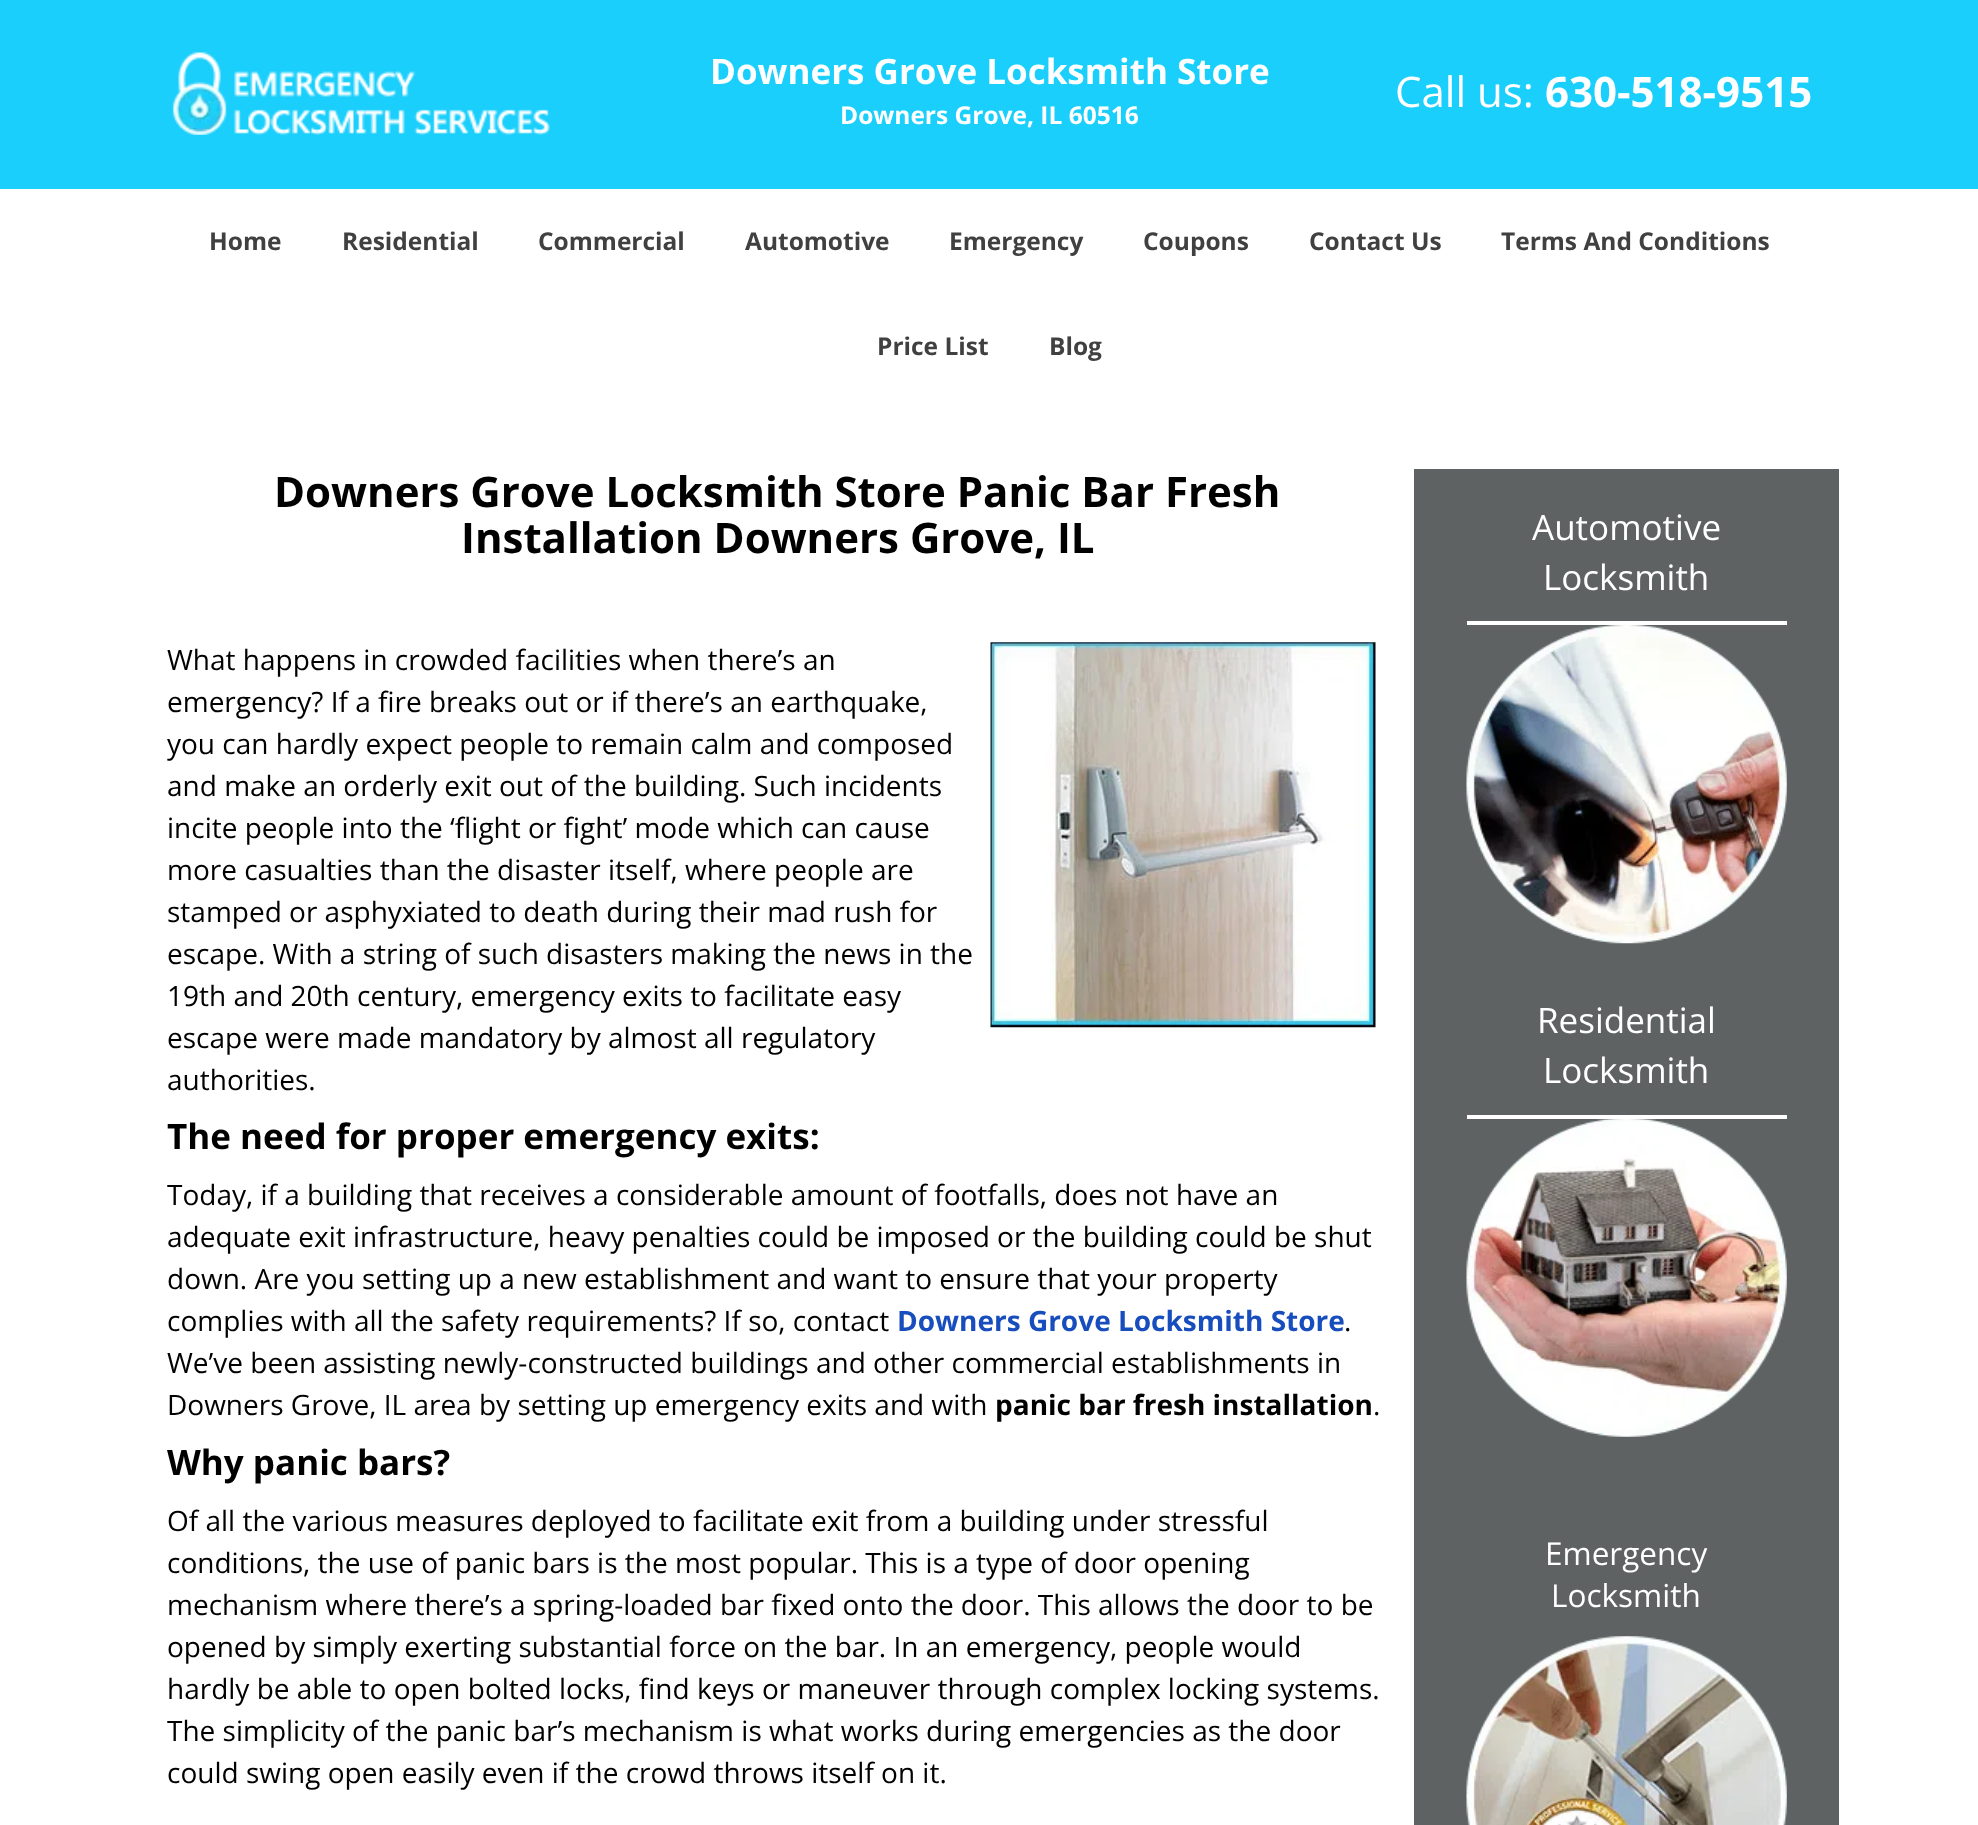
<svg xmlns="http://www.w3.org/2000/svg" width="1978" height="1825">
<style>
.a{font:bold 35px Open Sans;fill:#fff}
.b{font:bold 24.5px Open Sans;fill:#fff}
.c{font:42px Open Sans;fill:#fff}
.d{font:bold 42px Open Sans;fill:#fff}
.e{font:bold 24.5px Open Sans;fill:#404040}
.f{font:bold 42px Open Sans;fill:#000}
.g{font:28px Open Sans;fill:#000}
.h{font:bold 35px Open Sans;fill:#000}
.i{font:bold 28px Open Sans;fill:#174dbc}
.j{font:bold 28px Open Sans;fill:#000}
.k{font:35px Open Sans;fill:#fff}
.l{font:31.5px Open Sans;fill:#fff}
</style>
<rect width="100%" height="100%" fill="#fff"/>
<path fill="#1bcffc" d="M0 0h1978v189H0z"/>
<image href="1.png" x="172" y="52" width="378" height="83"/>
<image href="2.png" x="990" y="642" width="386" height="386"/>
<path fill="#5e6263" d="M1414 469h425v1356H1414z"/>
<path fill="#fff" d="M1467 621h320v4H1467z"/>
<image href="3.png" x="1466" y="625" width="321" height="319"/>
<path fill="#fff" d="M1467 1115h320v4H1467z"/>
<image href="4.png" x="1466" y="1119" width="321" height="318"/>
<image href="5.png" x="1466" y="1636" width="321" height="189"/>
<text class="a" x="710" y="84">Downers Grove Locksmith Store</text>
<text class="b" x="840" y="124">Downers Grove, IL 60516</text>
<text class="c" x="1395" y="107">Call us:</text>
<text class="d" x="1545" y="107">630-518-9515</text>
<text class="e" x="209" y="250">Home</text>
<text class="e" x="342" y="250">Residential</text>
<text class="e" x="538" y="250">Commercial</text>
<text class="e" x="745" y="250">Automotive</text>
<text class="e" x="949" y="250">Emergency</text>
<text class="e" x="1143" y="250">Coupons</text>
<text class="e" x="1309" y="250">Contact Us</text>
<text class="e" x="1501" y="250">Terms And Conditions</text>
<text class="e" x="877" y="355">Price List</text>
<text class="e" x="1049" y="355">Blog</text>
<text class="f" x="274" y="507">Downers Grove Locksmith Store Panic Bar Fresh</text>
<text class="f" x="461" y="553">Installation Downers Grove, IL</text>
<text class="g" x="167" y="670">What happens in crowded facilities when there’s an</text>
<text class="g" x="167" y="712">emergency? If a fire breaks out or if there’s an earthquake,</text>
<text class="g" x="167" y="754">you can hardly expect people to remain calm and composed</text>
<text class="g" x="167" y="796">and make an orderly exit out of the building. Such incidents</text>
<text class="g" x="167" y="838">incite people into the ‘flight or fight’ mode which can cause</text>
<text class="g" x="167" y="880">more casualties than the disaster itself, where people are</text>
<text class="g" x="167" y="922">stamped or asphyxiated to death during their mad rush for</text>
<text class="g" x="167" y="964">escape. With a string of such disasters making the news in the</text>
<text class="g" x="167" y="1006">19th and 20th century, emergency exits to facilitate easy</text>
<text class="g" x="167" y="1048">escape were made mandatory by almost all regulatory</text>
<text class="g" x="167" y="1090">authorities.</text>
<text class="h" x="167" y="1149">The need for proper emergency exits:</text>
<text class="g" x="167" y="1205">Today, if a building that receives a considerable amount of footfalls, does not have an</text>
<text class="g" x="167" y="1247">adequate exit infrastructure, heavy penalties could be imposed or the building could be shut</text>
<text class="g" x="167" y="1289">down. Are you setting up a new establishment and want to ensure that your property</text>
<text class="g" x="167" y="1331">complies with all the safety requirements? If so, contact</text>
<text class="i" x="897" y="1331">Downers Grove Locksmith Store</text>
<text class="g" x="1344" y="1331">.</text>
<text class="g" x="167" y="1373">We’ve been assisting newly-constructed buildings and other commercial establishments in</text>
<text class="g" x="167" y="1415">Downers Grove, IL area by setting up emergency exits and with</text>
<text class="j" x="995" y="1415">panic bar fresh installation</text>
<text class="g" x="1373" y="1415">.</text>
<text class="h" x="167" y="1475">Why panic bars?</text>
<text class="g" x="167" y="1531">Of all the various measures deployed to facilitate exit from a building under stressful</text>
<text class="g" x="167" y="1573">conditions, the use of panic bars is the most popular. This is a type of door opening</text>
<text class="g" x="167" y="1615">mechanism where there’s a spring-loaded bar fixed onto the door. This allows the door to be</text>
<text class="g" x="167" y="1657">opened by simply exerting substantial force on the bar. In an emergency, people would</text>
<text class="g" x="167" y="1699">hardly be able to open bolted locks, find keys or maneuver through complex locking systems.</text>
<text class="g" x="167" y="1741">The simplicity of the panic bar’s mechanism is what works during emergencies as the door</text>
<text class="g" x="167" y="1783">could swing open easily even if the crowd throws itself on it.</text>
<text class="k" x="1532" y="540">Automotive</text>
<text class="k" x="1543" y="590">Locksmith</text>
<text class="k" x="1537" y="1033">Residential</text>
<text class="k" x="1543" y="1083">Locksmith</text>
<text class="l" x="1545" y="1565">Emergency</text>
<text class="l" x="1551" y="1607">Locksmith</text>
</svg>
